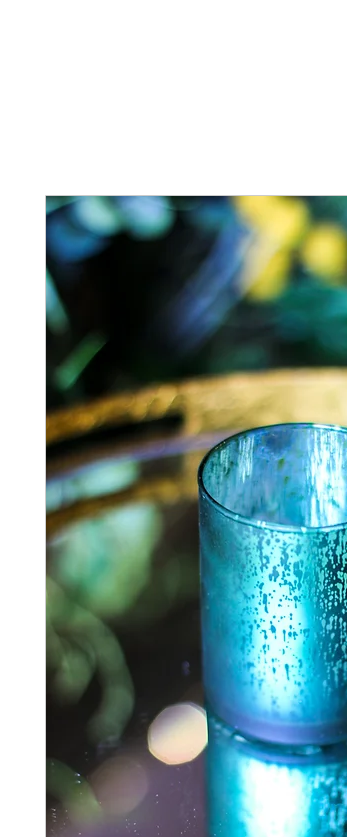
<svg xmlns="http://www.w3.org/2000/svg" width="347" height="837">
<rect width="100%" height="100%" fill="#fff"/>
<path fill="none" stroke="#ccc" d="M45.5 195.5h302v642H45.5z"/>
<image href="1.png" x="46" y="196" width="301" height="641"/>
</svg>
